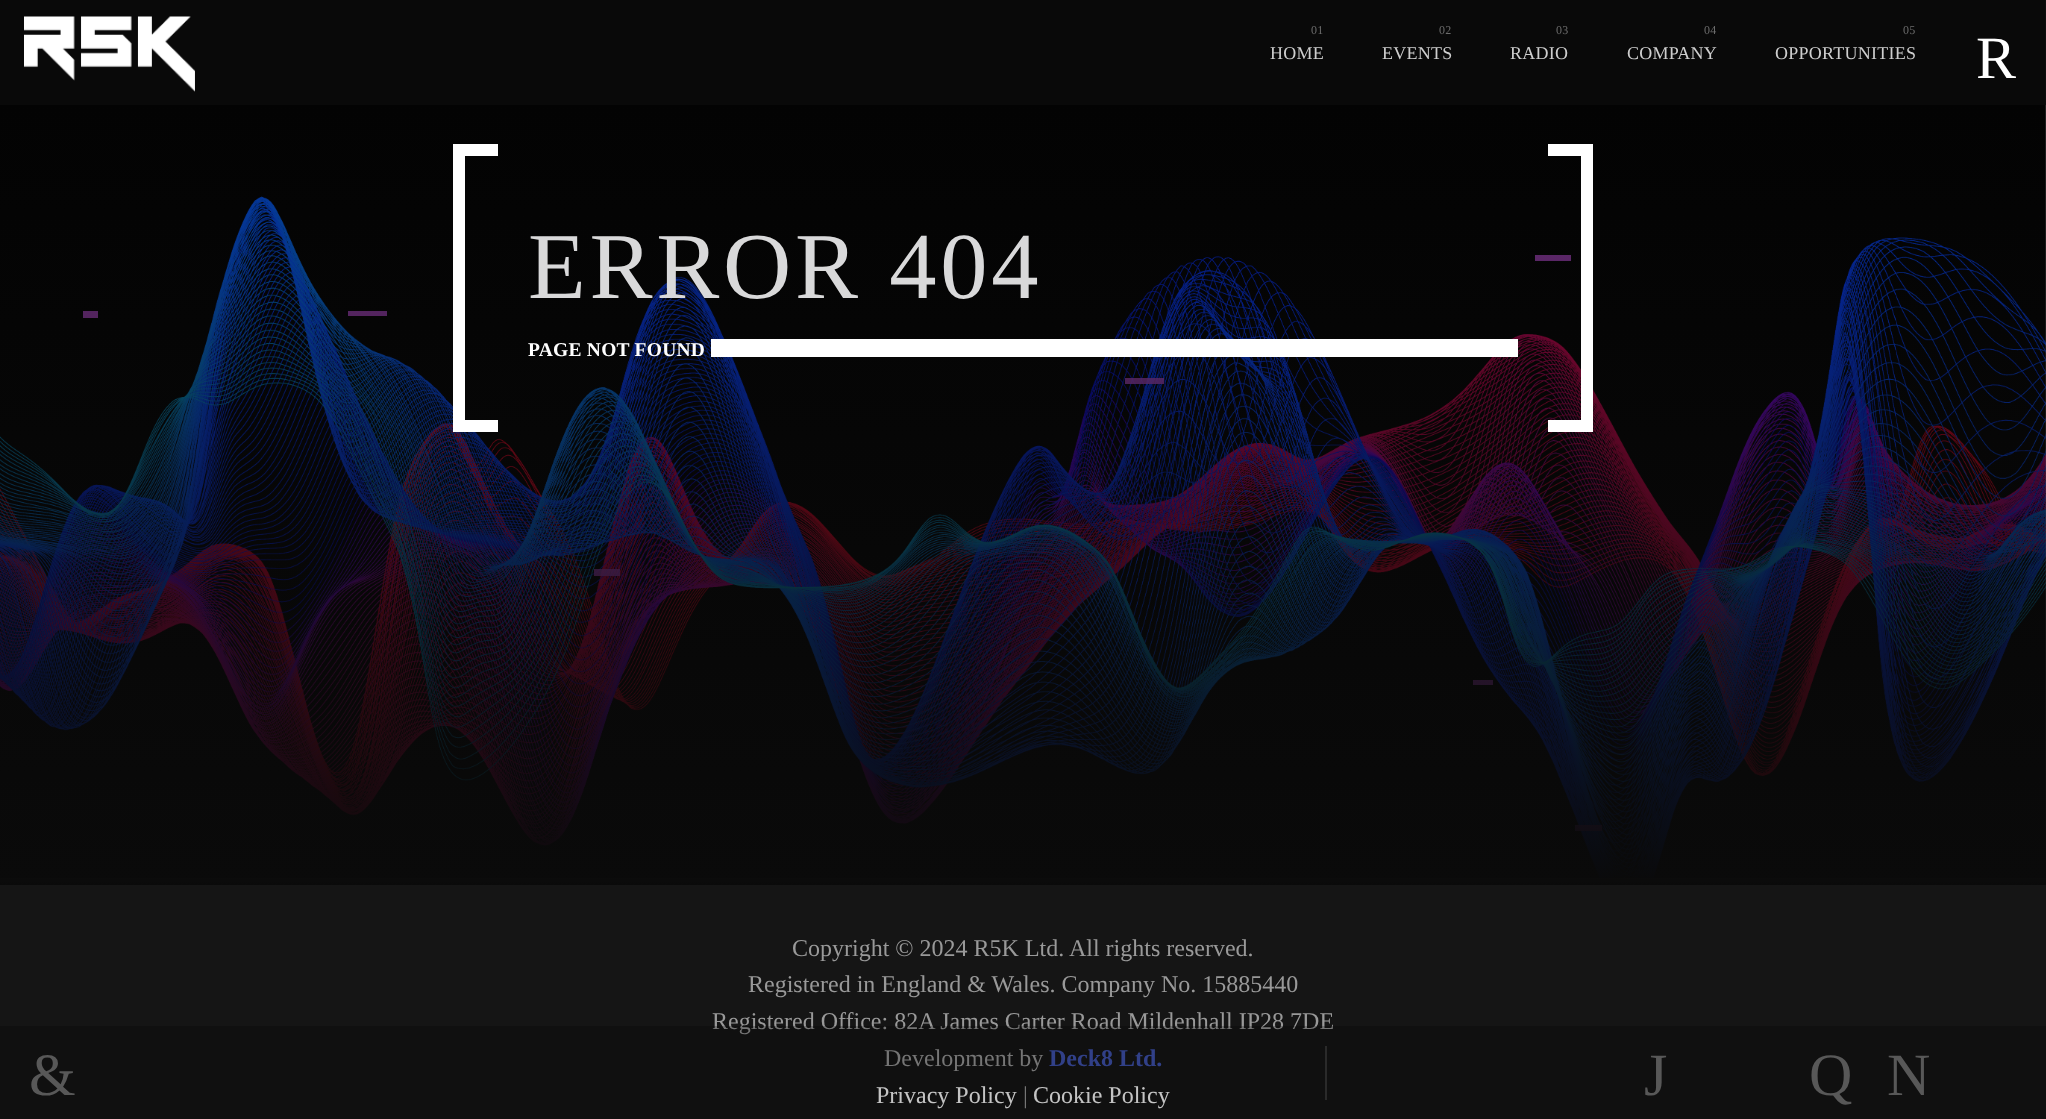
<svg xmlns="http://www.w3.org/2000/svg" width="2046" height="1119">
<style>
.a{font:12px Liberation Serif;letter-spacing:0.25px;fill:#6b6b6b}
.b{font:18px Liberation Serif;letter-spacing:0.25px;fill:#cecece}
.c{font:60px Liberation Serif;fill:#fff}
.d{font:94.5px Liberation Serif;letter-spacing:3.75px;fill:#d9d9da}
.e{font:bold 19.5px Liberation Serif;letter-spacing:0.25px;fill:#fff}
.f{font:24px Liberation Serif;fill:#999}
.g{font:bold 24px Liberation Serif;fill:#4054b2}
.h{font:24px Liberation Serif;fill:#fff}
.i{font:60px Liberation Serif;fill:#585858}
</style>
<defs>
<linearGradient id="g1" gradientUnits="userSpaceOnUse" x1="1023" y1="-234" x2="1023" y2="885"><stop offset="0" stop-color="#0a0a0a" stop-opacity="0"/><stop offset="1" stop-color="#0a0a0a"/></linearGradient>
</defs>
<rect width="100%" height="100%" fill="#fff"/>
<image href="1.png" x="0" y="0" width="2046" height="878"/>
<path fill="#993daf" d="M1535 255h36v6H1535z"/>
<path fill="#993daf" d="M83 311h15v7H83z"/>
<path fill="#993daf" d="M348 311h39v5H348z"/>
<path fill="#00fff999" d="M1125 378h39v6H1125z"/>
<path fill="#ff00c199" d="M1125 378h39v6H1125z"/>
<path fill="#00fff999" d="M594 569h26v7H594z"/>
<path fill="#ff00c199" d="M594 569h26v7H594z"/>
<path fill="#993daf" d="M1473 680h20v5H1473z"/>
<path fill="#00fff999" d="M1575 825h27v6H1575z"/>
<path fill="#ff00c199" d="M1575 825h27v6H1575z"/>
<path fill="url(#g1)" d="M0 0h2046v885H0z"/>
<path fill="#0a0a0ad9" d="M0 0h2046v105H0z"/>
<image href="2.png" x="24" y="16" width="171" height="76"/>
<path fill="#fff" d="M465 144h33v12H465z"/>
<path fill="#fff" d="M465 420h33v12H465z"/>
<path fill="#fff" d="M453 144h12v288H453z"/>
<path fill="#fff" d="M1548 420h33v12H1548z"/>
<path fill="#fff" d="M1548 144h33v12H1548z"/>
<path fill="#fff" d="M1581 144h12v288H1581z"/>
<path fill="#fff" d="M711 339h807v18H711z"/>
<path fill="#151515" d="M0 885h2046v234H0z"/>
<text class="a" x="1311" y="34">01</text>
<text class="b" x="1270" y="59">HOME</text>
<text class="a" x="1439" y="34">02</text>
<text class="b" x="1382" y="59">EVENTS</text>
<text class="a" x="1556" y="34">03</text>
<text class="b" x="1510" y="59">RADIO</text>
<text class="a" x="1704" y="34">04</text>
<text class="b" x="1627" y="59">COMPANY</text>
<text class="a" x="1903" y="34">05</text>
<text class="b" x="1775" y="59">OPPORTUNITIES</text>
<text class="c" x="1976" y="78">R</text>
<text class="d" x="528" y="298">ERROR 404</text>
<text class="e" x="528" y="356">PAGE NOT FOUND</text>
<text class="f" x="792" y="956">Copyright © 2024 R5K Ltd. All rights reserved.</text>
<text class="f" x="748" y="992">Registered in England &amp; Wales. Company No. 15885440</text>
<text class="f" x="712" y="1029">Registered Office: 82A James Carter Road Mildenhall IP28 7DE</text>
<text class="f" x="884" y="1066">Development by</text>
<text class="g" x="1049" y="1066">Deck8 Ltd.</text>
<text class="h" x="876" y="1103">Privacy Policy</text>
<text class="f" x="1023" y="1103">|</text>
<text class="h" x="1033" y="1103">Cookie Policy</text>
<path fill="#0000003b" d="M0 1026h2046v93H0z"/>
<text class="i" x="29" y="1095">&amp;</text>
<path fill="#2a2a2a" d="M1325 1046h2v54H1325z"/>
<text class="i" x="1644" y="1095">J</text>
<text class="i" x="1809" y="1095">Q</text>
<text class="i" x="1887" y="1095">N</text>
</svg>
